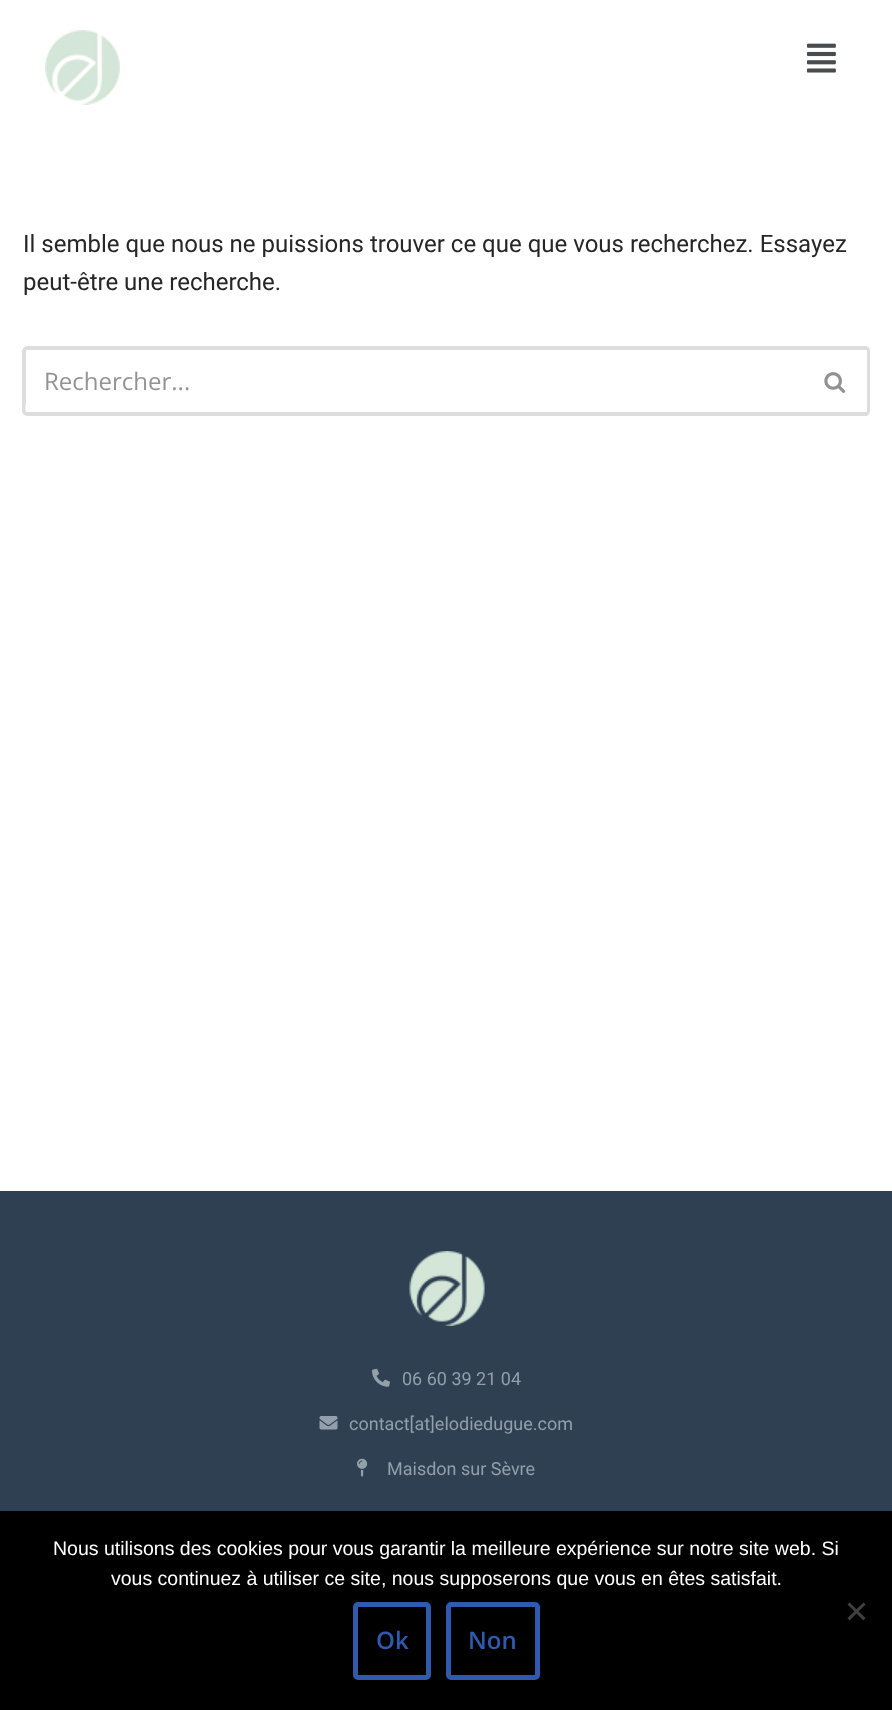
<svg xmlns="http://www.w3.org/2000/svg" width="892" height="1710">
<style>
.a{font:24px Roboto;fill:#272626}
.b{font:24px Open Sans;fill:#939393}
.c{font:18px Roboto;fill:#939fab}
.d{font:19.5px Liberation Sans;fill:#fff}
.e{font:600 24px Open Sans;fill:#2f5aae}
</style>
<rect width="100%" height="100%" fill="#fff"/>
<image href="1.png" x="45" y="30" width="75" height="75"/>
<image href="2.png" x="807" y="43" width="29" height="30"/>
<path fill="#ddd" fill-rule="evenodd" d="M27 346h775v70h-775c-2 0-5-3-5-5v-60c0-2 3-5 5-5zm0 4h775v62h-775c-3 0-1-8-1-11v-51z"/>
<path fill="#ddd" fill-rule="evenodd" d="M802 346h64c2 0 4 3 4 5v60c0 2-2 5-4 5h-64zm0 4h64c0 0 1 0 1 1v60c0 1-1 1-1 1h-64z"/>
<image href="3.png" x="824" y="372" width="22" height="21"/>
<path fill="#2e4052" d="M0 1191h892v320H0z"/>
<image href="4.png" x="409" y="1251" width="76" height="75"/>
<image href="5.png" x="372" y="1368" width="18" height="19"/>
<image href="6.png" x="319" y="1416" width="19" height="14"/>
<image href="7.png" x="357" y="1458" width="11" height="19"/>
<path fill="#000" d="M0 1511h892v199H0z"/>
<path fill="#404040" d="M863.5 1602.5l2 2l-16 16l-2-2.5z"/>
<path fill="#404040" d="M847.5 1604.5l2-2l16 15.5l-2 2.5z"/>
<rect fill="none" stroke="#2f5aae" stroke-width="5" x="355.5" y="1604.5" width="73" height="73" rx="2.5"/>
<rect fill="none" stroke="#2f5aae" stroke-width="5" x="448.5" y="1604.5" width="89" height="73" rx="2.5"/>
<text class="a" x="23" y="252">Il semble que nous ne puissions trouver ce que que vous recherchez. Essayez</text>
<text class="a" x="23" y="290">peut-être une recherche.</text>
<text class="b" x="44" y="390">Rechercher...</text>
<text class="c" x="402" y="1385">06 60 39 21 04</text>
<text class="c" x="349" y="1430">contact[at]elodiedugue.com</text>
<text class="c" x="387" y="1475">Maisdon sur Sèvre</text>
<text class="d" x="53" y="1555">Nous utilisons des cookies pour vous garantir la meilleure expérience sur notre site web. Si</text>
<text class="d" x="111" y="1585">vous continuez à utiliser ce site, nous supposerons que vous en êtes satisfait.</text>
<text class="e" x="376" y="1649">Ok</text>
<text class="e" x="468" y="1649">Non</text>
</svg>
